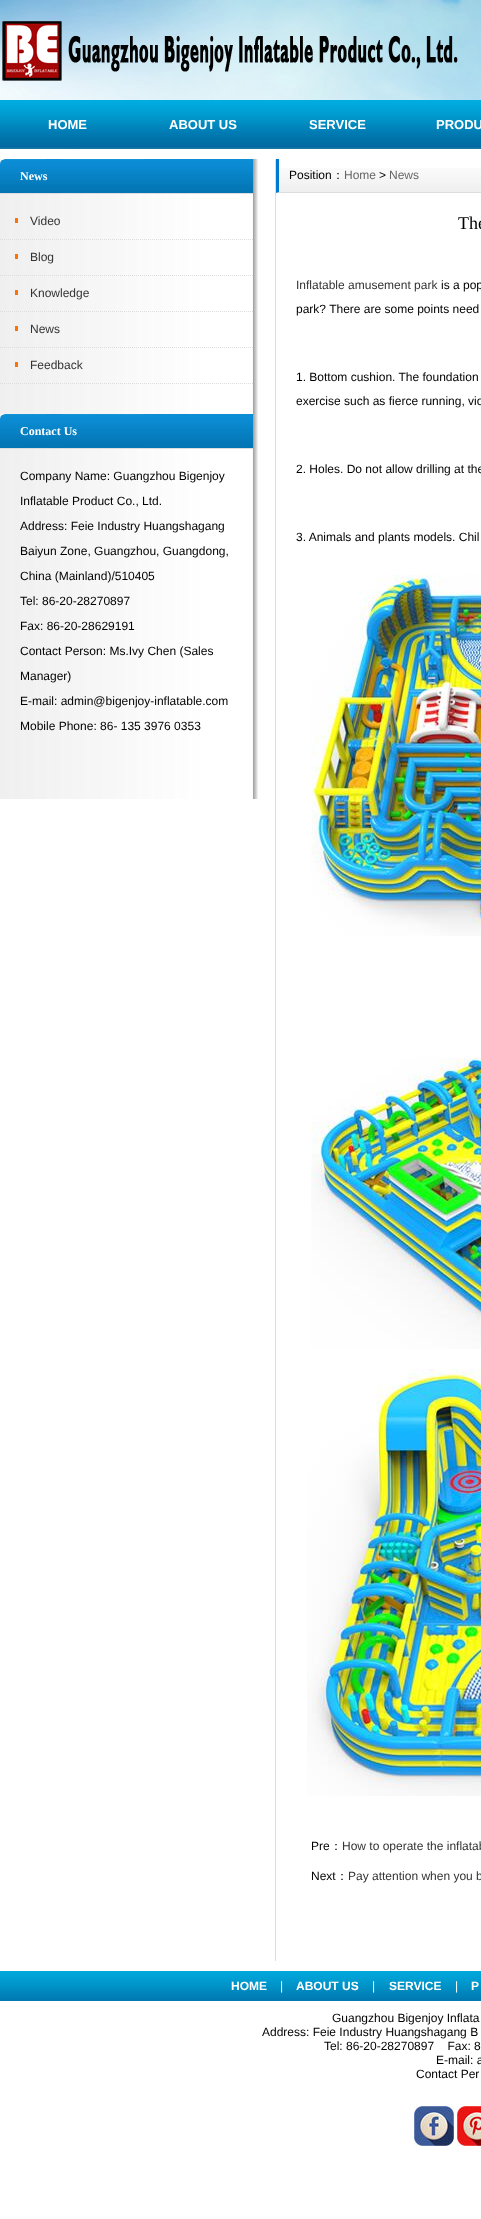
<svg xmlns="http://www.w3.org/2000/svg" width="481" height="2219">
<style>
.a{font:bold 13px Liberation Sans;fill:#fff}
.b{font:bold 12px Liberation Serif;fill:#fff}
.c{font:12px Liberation Sans;fill:#333}
.d{font:12px Liberation Sans;fill:#000}
.e{font:500 12px WenQuanYi Zen Hei;fill:#000}
.f{font:12px Liberation Sans;fill:#666}
.g{font:18px Liberation Serif;fill:#000}
.h{font:bold 12px Liberation Sans;fill:#fff}
.i{font:12px Liberation Sans;fill:#fff}
</style>
<rect width="100%" height="100%" fill="#fff"/>
<image href="1.png" x="0" y="0" width="481" height="100"/>
<image href="2.png" x="2" y="21" width="456" height="60"/>
<image href="3.png" x="0" y="100" width="481" height="49"/>
<image href="4.png" x="0" y="159" width="258" height="640"/>
<image href="5.png" x="0" y="159" width="253" height="34"/>
<path fill="#ddd" d="M0 193h253v1H0z"/>
<path fill="#ff7100" d="M15 218h3v5H15z"/>
<path fill="none" stroke="#ddd" stroke-dasharray="1 1" d="M0 239.5h253"/>
<path fill="#ff7100" d="M15 254h3v5H15z"/>
<path fill="none" stroke="#ddd" stroke-dasharray="1 1" d="M0 275.5h253"/>
<path fill="#ff7100" d="M15 290h3v5H15z"/>
<path fill="none" stroke="#ddd" stroke-dasharray="1 1" d="M0 311.5h253"/>
<path fill="#ff7100" d="M15 326h3v5H15z"/>
<path fill="none" stroke="#ddd" stroke-dasharray="1 1" d="M0 347.5h253"/>
<path fill="#ff7100" d="M15 362h3v5H15z"/>
<path fill="none" stroke="#ddd" stroke-dasharray="1 1" d="M0 383.5h253"/>
<image href="5.png" x="0" y="414" width="253" height="34"/>
<path fill="#ddd" d="M0 448h253v1H0z"/>
<path fill="#ddd" d="M275 159h1v1802H275z"/>
<image href="6.png" x="276" y="168" width="205" height="25"/>
<path fill="#ddd" d="M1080 193h-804l3-1h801z"/>
<path fill="#007acf" d="M276 193v-34h3v33z"/>
<image href="7.png" x="311" y="574" width="170" height="362"/>
<image href="8.png" x="311" y="1057" width="170" height="292"/>
<image href="9.png" x="307" y="1369" width="174" height="427"/>
<image href="10.png" x="0" y="1971" width="481" height="30"/>
<image href="11.png" x="414" y="2106" width="40" height="40"/>
<image href="12.png" x="457" y="2106" width="24" height="40"/>
<text class="a" x="48" y="129">HOME</text>
<text class="a" x="169" y="129">ABOUT US</text>
<text class="a" x="309" y="129">SERVICE</text>
<text class="a" x="436" y="129">PRODU</text>
<text class="b" x="20" y="180">News</text>
<text class="c" x="30" y="225">Video</text>
<text class="c" x="30" y="261">Blog</text>
<text class="c" x="30" y="297">Knowledge</text>
<text class="c" x="30" y="333">News</text>
<text class="c" x="30" y="369">Feedback</text>
<text class="b" x="20" y="435">Contact Us</text>
<text class="d" x="20" y="480">Company Name: Guangzhou Bigenjoy</text>
<text class="d" x="20" y="505">Inflatable Product Co., Ltd.</text>
<text class="d" x="20" y="530">Address: Feie Industry Huangshagang</text>
<text class="d" x="20" y="555">Baiyun Zone, Guangzhou, Guangdong,</text>
<text class="d" x="20" y="580">China (Mainland)/510405</text>
<text class="d" x="20" y="605">Tel: 86-20-28270897</text>
<text class="d" x="20" y="630">Fax: 86-20-28629191</text>
<text class="d" x="20" y="655">Contact Person: Ms.Ivy Chen (Sales</text>
<text class="d" x="20" y="680">Manager)</text>
<text class="d" x="20" y="705">E-mail: admin@bigenjoy-inflatable.com</text>
<text class="d" x="20" y="730">Mobile Phone: 86- 135 3976 0353</text>
<text class="d" x="289" y="179">Position</text>
<text class="e" x="332" y="179">：</text>
<text class="f" x="344" y="179">Home</text>
<text class="d" x="379" y="179">&gt;</text>
<text class="f" x="389" y="179">News</text>
<text class="g" x="458" y="229">The</text>
<text class="c" x="296" y="289">Inflatable amusement park</text>
<text class="d" x="441" y="289">is a pop</text>
<text class="d" x="296" y="313">park? There are some points need</text>
<text class="d" x="296" y="381">1. Bottom cushion. The foundation</text>
<text class="d" x="296" y="405">exercise such as fierce running, vio</text>
<text class="d" x="296" y="473">2. Holes. Do not allow drilling at the</text>
<text class="d" x="296" y="541">3. Animals and plants models. Chil</text>
<text class="d" x="311" y="1850">Pre</text>
<text class="e" x="330" y="1850">：</text>
<text class="c" x="342" y="1850">How to operate the inflatab</text>
<text class="d" x="311" y="1880">Next</text>
<text class="e" x="336" y="1880">：</text>
<text class="c" x="348" y="1880">Pay attention when you b</text>
<text class="h" x="231" y="1990">HOME</text>
<text class="i" x="280" y="1990">|</text>
<text class="h" x="296" y="1990">ABOUT US</text>
<text class="i" x="372" y="1990">|</text>
<text class="h" x="389" y="1990">SERVICE</text>
<text class="i" x="455" y="1990">|</text>
<text class="h" x="471" y="1990">P</text>
<text class="d" x="332" y="2022">Guangzhou Bigenjoy Inflata</text>
<text class="d" x="262" y="2036">Address: Feie Industry Huangshagang B</text>
<text class="d" xml:space="preserve" x="324" y="2050">Tel: 86-20-28270897    Fax: 8</text>
<text class="d" x="436" y="2064">E-mail: a</text>
<text class="d" x="416" y="2078">Contact Per</text>
</svg>
